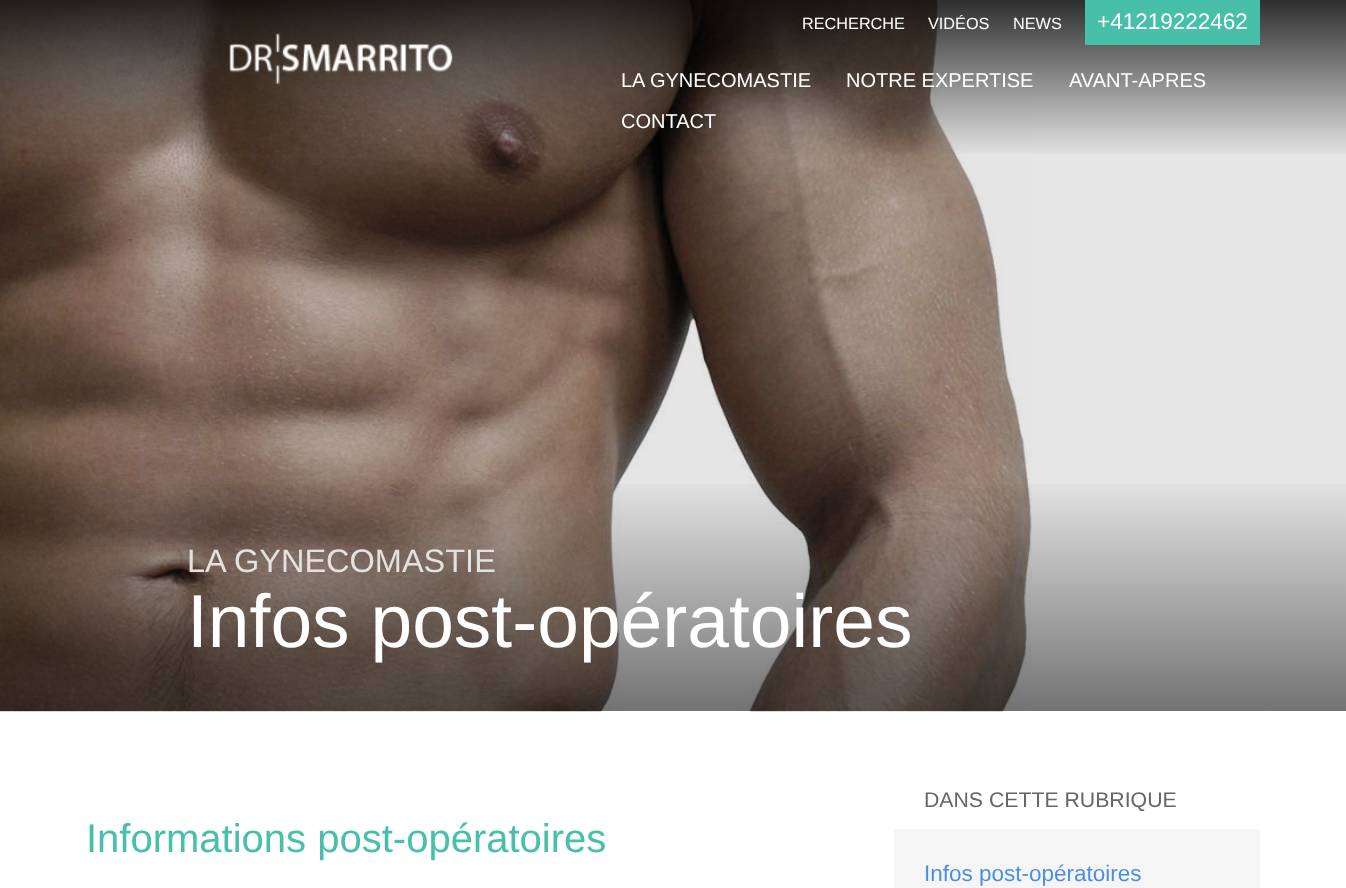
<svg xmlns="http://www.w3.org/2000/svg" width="1346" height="888">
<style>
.a{font:16.25px Liberation Sans;fill:#fff}
.b{font:22.5px Liberation Sans;fill:#fff}
.c{font:20px Liberation Sans;fill:#fff}
.d{font:32.5px Liberation Sans;fill:#e5e1df}
.e{font:75px Liberation Sans;fill:#fff}
.f{font:40px Liberation Sans;fill:#47bfa9}
.g{font:21.25px Liberation Sans;fill:#666}
.h{font:22.5px Liberation Sans;fill:#4a90e2}
</style>
<defs>
<linearGradient id="g1" gradientUnits="userSpaceOnUse" x1="673" y1="0" x2="673" y2="158"><stop offset="0" stop-color="#000" stop-opacity="0.8"/><stop offset="1" stop-color="#000" stop-opacity="0"/></linearGradient>
<linearGradient id="g2" gradientUnits="userSpaceOnUse" x1="673" y1="474" x2="673" y2="711"><stop offset="0" stop-color="#000" stop-opacity="0"/><stop offset="1" stop-color="#000" stop-opacity="0.5"/></linearGradient>
</defs>
<rect width="100%" height="100%" fill="#fff"/>
<path fill="#e6e6e6" d="M1032 0h314v711H1032z"/>
<image href="2.png" x="0" y="0" width="1032" height="712"/>
<path fill="url(#g1)" d="M0 0h1346v154H0z"/>
<image href="1.png" x="229" y="33" width="224" height="52"/>
<path fill="#47bfa9" d="M1085 0h175v45H1085z"/>
<path fill="url(#g2)" d="M0 484h1346v227H0z"/>
<path fill="#f5f5f5" d="M894 829h366v59H894z"/>
<text class="a" x="802" y="29">RECHERCHE</text>
<text class="a" x="928" y="29">VIDÉOS</text>
<text class="a" x="1013" y="29">NEWS</text>
<text class="b" x="1097" y="29">+41219222462</text>
<text class="c" x="621" y="87">LA GYNECOMASTIE</text>
<text class="c" x="846" y="87">NOTRE EXPERTISE</text>
<text class="c" x="1069" y="87">AVANT-APRES</text>
<text class="c" x="621" y="128">CONTACT</text>
<text class="d" x="187" y="572">LA GYNECOMASTIE</text>
<text class="e" x="187" y="647">Infos post-opératoires</text>
<text class="f" x="86" y="852">Informations post-opératoires</text>
<text class="g" x="924" y="807">DANS CETTE RUBRIQUE</text>
<text class="h" x="924" y="881">Infos post-opératoires</text>
</svg>
